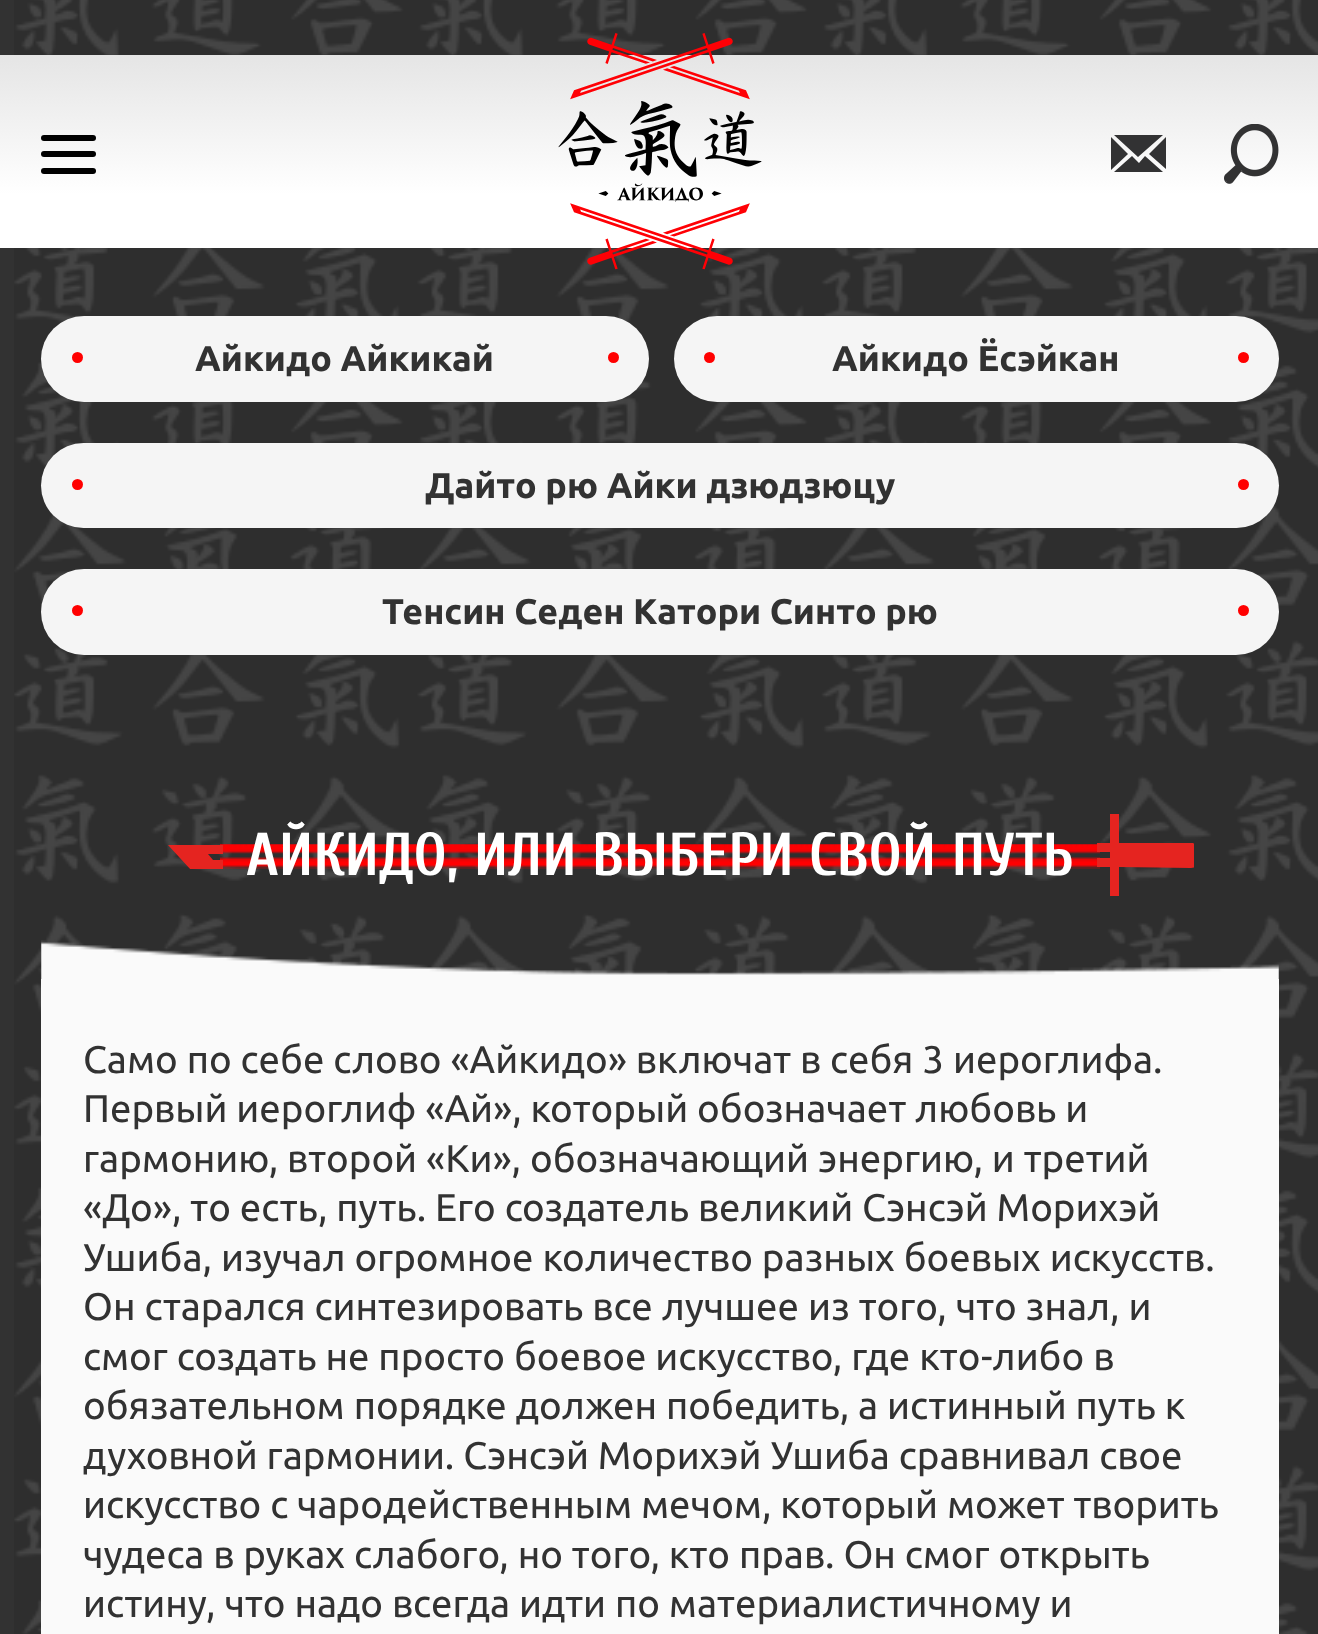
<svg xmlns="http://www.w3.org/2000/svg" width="1318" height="1634">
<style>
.a{font:bold 35.75px Ubuntu;fill:#323232}
.b{font:bold 60.5px Cuprum;fill:#fff}
.c{font:38.5px Ubuntu;fill:#323232}
</style>
<defs>
<linearGradient id="g1" gradientUnits="userSpaceOnUse" x1="660" y1="55" x2="660" y2="248"><stop offset="0" stop-color="#e5e5e5"/><stop offset="0.72" stop-color="#fff"/></linearGradient>
<clipPath id="clip1"><path d="M168 817h55v52H168z"/></clipPath>
<clipPath id="clip2"><path d="M1097 814h97v83H1097z"/></clipPath>
</defs>
<rect width="100%" height="100%" fill="#323232"/>
<image href="1.png" x="14" y="0" width="1304" height="1634"/>
<path fill="url(#g1)" d="M0 55h1318v193H0z"/>
<rect fill="#000" x="41" y="135" width="55" height="6" rx="3"/>
<rect fill="#000" x="41" y="151" width="55" height="6" rx="3"/>
<rect fill="#000" x="41" y="168" width="55" height="6" rx="3"/>
<image href="2.png" x="558" y="33" width="204" height="237"/>
<path fill="#323233" d="M1111 170v-33l17 17zm52 2h-49l18-16l7 7l6-7zm-49-37h49l-25 22zm35 19l17-17v32z"/>
<image href="3.png" x="1224" y="124" width="55" height="60"/>
<rect fill="#f5f5f5" x="41" y="316" width="608" height="86" rx="43"/>
<circle fill="#f00" cx="77.5" cy="357.5" r="5.5"/>
<circle fill="#f00" cx="613.5" cy="357.5" r="5.5"/>
<rect fill="#f5f5f5" x="674" y="316" width="605" height="86" rx="43"/>
<circle fill="#f00" cx="709.5" cy="357.5" r="5.5"/>
<circle fill="#f00" cx="1243.5" cy="357.5" r="5.5"/>
<rect fill="#f5f5f5" x="41" y="443" width="1238" height="85" rx="42.5"/>
<circle fill="#f00" cx="77.5" cy="484.5" r="5.5"/>
<circle fill="#f00" cx="1243.5" cy="484.5" r="5.5"/>
<rect fill="#f5f5f5" x="41" y="569" width="1238" height="86" rx="43"/>
<circle fill="#f00" cx="77.5" cy="610.5" r="5.5"/>
<circle fill="#f00" cx="1243.5" cy="610.5" r="5.5"/>
<image href="4.png" x="220" y="844" width="880" height="25"/>
<g clip-path="url(#clip1)">
<path fill="#e52420" d="M213 860l-5-6h15v-9h-55l23 25h32v-10z"/>
</g>
<g clip-path="url(#clip2)">
<path fill="#e52420" d="M1191 843h-72v-29h-9v29h-13v9h13v6h-13v9h13v29h9v-29l72 1c7 0 12-6 12-13c0-6-5-12-12-12z"/>
</g>
<image href="5.png" x="41" y="940" width="1238" height="39"/>
<path fill="#fafafa" d="M41 979h1238v655H41z"/>
<text class="a" x="195" y="371">Айкидо Айкикай</text>
<text class="a" x="832" y="371">Айкидо Ёсэйкан</text>
<text class="a" x="425" y="498">Дайто рю Айки дзюдзюцу</text>
<text class="a" x="382" y="624">Тенсин Седен Катори Синто рю</text>
<text class="b" x="246" y="875">АЙКИДО, ИЛИ ВЫБЕРИ СВОЙ ПУТЬ</text>
<text class="c" x="83" y="1073">Само по себе слово «Айкидо» включат в себя 3 иероглифа.</text>
<text class="c" x="83" y="1122">Первый иероглиф «Ай», который обозначает любовь и</text>
<text class="c" x="83" y="1172">гармонию, второй «Ки», обозначающий энергию, и третий</text>
<text class="c" x="83" y="1221">«До», то есть, путь. Его создатель великий Сэнсэй Морихэй</text>
<text class="c" x="83" y="1271">Ушиба, изучал огромное количество разных боевых искусств.</text>
<text class="c" x="83" y="1320">Он старался синтезировать все лучшее из того, что знал, и</text>
<text class="c" x="83" y="1370">смог создать не просто боевое искусство, где кто-либо в</text>
<text class="c" x="83" y="1419">обязательном порядке должен победить, а истинный путь к</text>
<text class="c" x="83" y="1469">духовной гармонии. Сэнсэй Морихэй Ушиба сравнивал свое</text>
<text class="c" x="83" y="1518">искусство с чародейственным мечом, который может творить</text>
<text class="c" x="83" y="1568">чудеса в руках слабого, но того, кто прав. Он смог открыть</text>
<text class="c" x="83" y="1617">истину, что надо всегда идти по материалистичному и</text>
</svg>
